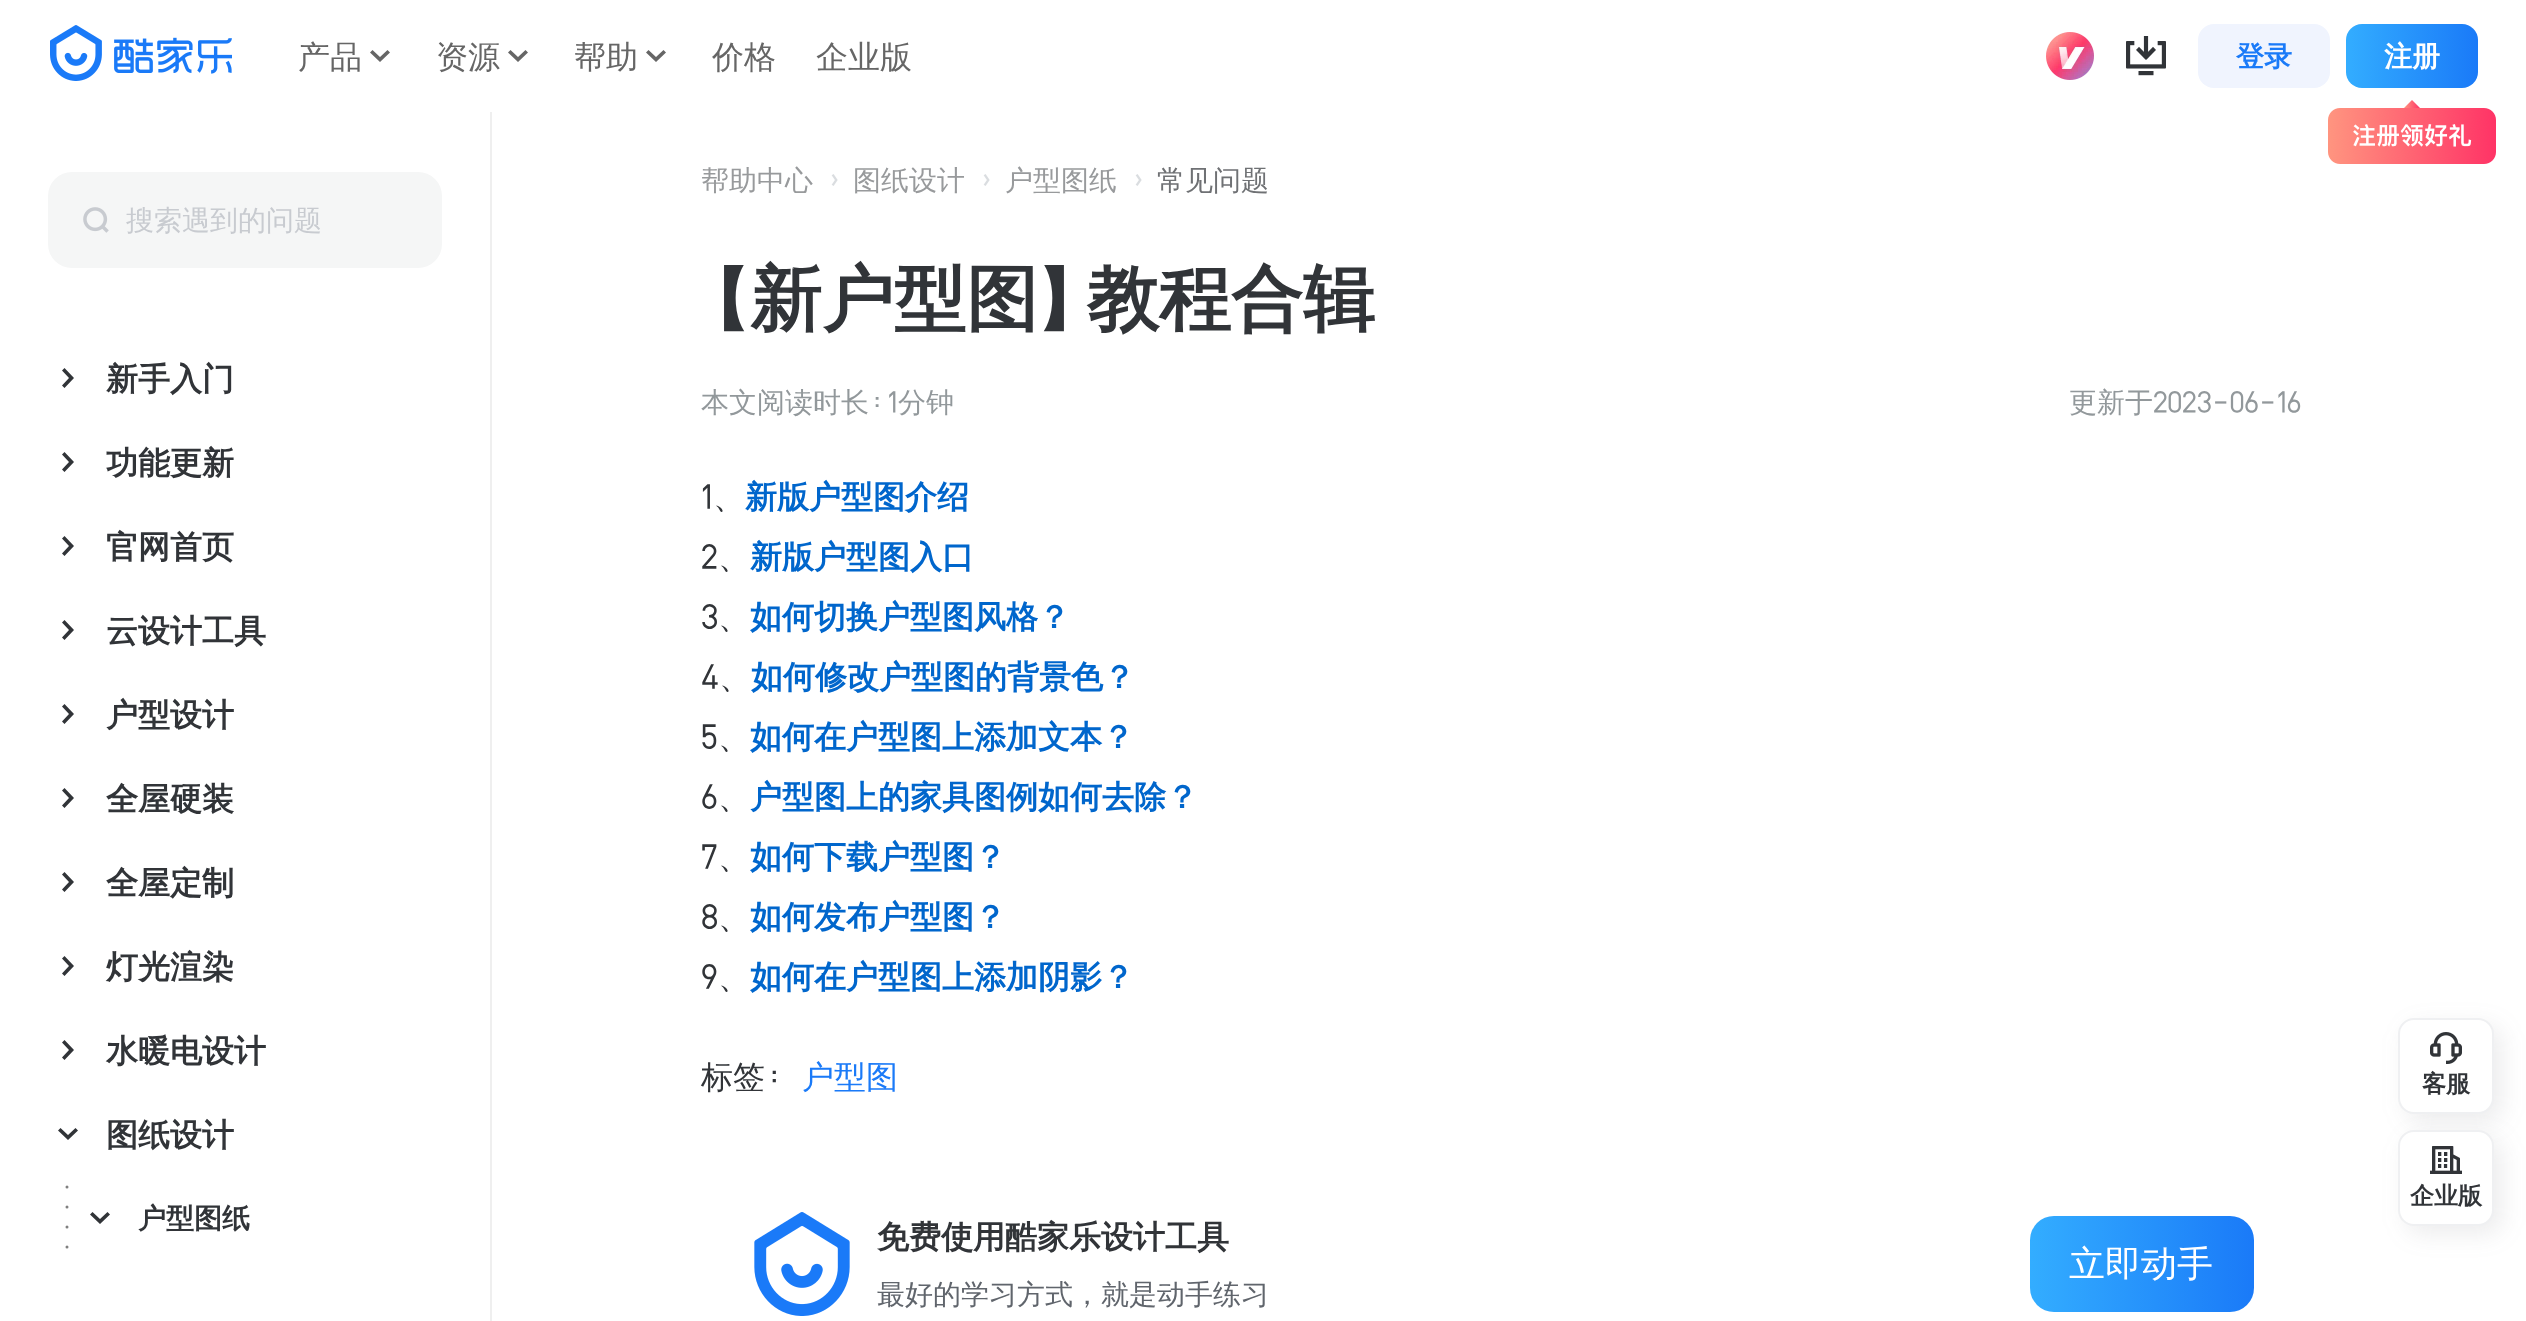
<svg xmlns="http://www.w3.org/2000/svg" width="2526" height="1321">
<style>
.a{font:500 32px WenQuanYi Zen Hei;fill:#666}
.b{font:bold 28px WenQuanYi Zen Hei;fill:#1a7af8}
.c{font:bold 28px WenQuanYi Zen Hei;fill:#fff}
.d{font:500 28px WenQuanYi Zen Hei;fill:#c8cbd0}
.e{font:bold 32px WenQuanYi Zen Hei;fill:#313438}
.f{font:bold 28px WenQuanYi Zen Hei;fill:#313438}
.g{font:500 28px WenQuanYi Zen Hei;fill:#989a9c}
.h{font:500 28px WenQuanYi Zen Hei;fill:#6f7174}
.i{font:600 72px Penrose;fill:#313438}
.j{font:bold 72px WenQuanYi Zen Hei;fill:#313438}
.k{font:500 28px WenQuanYi Zen Hei;fill:#92989b}
.l{font:28px Penrose;fill:#92989b}
.m{font:32px Penrose;fill:#313438}
.n{font:500 32px WenQuanYi Zen Hei;fill:#313438}
.o{font:bold 32px WenQuanYi Zen Hei;fill:#06c}
.p{font:500 32px WenQuanYi Zen Hei;fill:#1a7af8}
.q{font:500 28px WenQuanYi Zen Hei;fill:#60656c}
.r{font:500 36px WenQuanYi Zen Hei;fill:#fff}
.s{font:bold 24px WenQuanYi Zen Hei;fill:#313438}
</style>
<defs>
<linearGradient id="g1" gradientUnits="userSpaceOnUse" x1="2346" y1="56" x2="2478" y2="56"><stop offset="0" stop-color="#33adff"/><stop offset="1" stop-color="#1a7af8"/></linearGradient>
<linearGradient id="g2" gradientUnits="userSpaceOnUse" x1="2030" y1="1264" x2="2254" y2="1264"><stop offset="0" stop-color="#33adff"/><stop offset="1" stop-color="#1a7af8"/></linearGradient>
</defs>
<rect width="100%" height="100%" fill="#fff"/>
<image href="1.png" x="50" y="25" width="182" height="56"/>
<path fill="#666" d="M380 57l-7.5-7l-2.5 2.5l10 9.5l10-9.5l-2.5-2.5z"/>
<path fill="#666" d="M518 57l-7.5-7l-2.5 2.5l10 9.5l10-9.5l-2.5-2.5z"/>
<path fill="#666" d="M656 57l-7.5-7l-2.5 2.5l10 9.5l10-9.5l-2.5-2.5z"/>
<image href="2.png" x="2046" y="32" width="48" height="48"/>
<image href="3.png" x="2126" y="36" width="40" height="40"/>
<rect fill="#f0f4fe" x="2198" y="24" width="132" height="64" rx="16"/>
<rect fill="url(#g1)" x="2346" y="24" width="132" height="64" rx="16"/>
<image href="4.png" x="2328" y="100" width="168" height="64"/>
<rect fill="#f5f6f6" x="48" y="172" width="394" height="96" rx="24"/>
<image href="5.png" x="83" y="207" width="26" height="26"/>
<path fill="#313438" d="M69 378l-7-7.5l2.5-2.5l9.5 10l-9.5 10l-2.5-2.5z"/>
<path fill="#313438" d="M69 462l-7-7.5l2.5-2.5l9.5 10l-9.5 10l-2.5-2.5z"/>
<path fill="#313438" d="M69 546l-7-7.5l2.5-2.5l9.5 10l-9.5 10l-2.5-2.5z"/>
<path fill="#313438" d="M69 630l-7-7.5l2.5-2.5l9.5 10l-9.5 10l-2.5-2.5z"/>
<path fill="#313438" d="M69 714l-7-7.5l2.5-2.5l9.5 10l-9.5 10l-2.5-2.5z"/>
<path fill="#313438" d="M69 798l-7-7.5l2.5-2.5l9.5 10l-9.5 10l-2.5-2.5z"/>
<path fill="#313438" d="M69 882l-7-7.5l2.5-2.5l9.5 10l-9.5 10l-2.5-2.5z"/>
<path fill="#313438" d="M69 966l-7-7.5l2.5-2.5l9.5 10l-9.5 10l-2.5-2.5z"/>
<path fill="#313438" d="M69 1050l-7-7.5l2.5-2.5l9.5 10l-9.5 10l-2.5-2.5z"/>
<path fill="#313438" d="M68 1135l-7.5-7l-2.5 2.5l10 9.5l10-9.5l-2.5-2.5z"/>
<image href="6.png" x="65" y="1185" width="4" height="64"/>
<path fill="#313438" d="M100 1219l-7.5-7l-2.5 2.5l10 9.5l10-9.5l-2.5-2.5z"/>
<path fill="#efefef" d="M490 112h2v1209H490z"/>
<image href="7.png" x="831" y="174" width="7" height="12"/>
<image href="7.png" x="983" y="174" width="7" height="12"/>
<image href="7.png" x="1135" y="174" width="7" height="12"/>
<image href="8.png" x="754" y="1212" width="96" height="104"/>
<rect fill="url(#g2)" x="2030" y="1216" width="224" height="96" rx="24"/>
<rect fill="#60656c1f" filter="blur(12px)" x="2406" y="1026" width="96" height="96" rx="16"/>
<rect fill="#fff" stroke="#eff0f2" stroke-width="2" x="2399" y="1019" width="94" height="94" rx="15"/>
<image href="9.png" x="2430" y="1032" width="32" height="32"/>
<rect fill="#60656c1f" filter="blur(12px)" x="2406" y="1138" width="96" height="96" rx="16"/>
<rect fill="#fff" stroke="#eff0f2" stroke-width="2" x="2399" y="1131" width="94" height="94" rx="15"/>
<image href="10.png" x="2430" y="1146" width="32" height="28"/>
<text class="a" x="298" y="68">产品</text>
<text class="a" x="436" y="68">资源</text>
<text class="a" x="574" y="68">帮助</text>
<text class="a" x="712" y="68">价格</text>
<text class="a" x="816" y="68">企业版</text>
<text class="b" x="2236" y="66">登录</text>
<text class="c" x="2384" y="66">注册</text>
<text class="d" x="126" y="230">搜索遇到的问题</text>
<text class="e" x="106" y="390">新手入门</text>
<text class="e" x="106" y="474">功能更新</text>
<text class="e" x="106" y="558">官网首页</text>
<text class="e" x="106" y="642">云设计工具</text>
<text class="e" x="106" y="726">户型设计</text>
<text class="e" x="106" y="810">全屋硬装</text>
<text class="e" x="106" y="894">全屋定制</text>
<text class="e" x="106" y="978">灯光渲染</text>
<text class="e" x="106" y="1062">水暖电设计</text>
<text class="e" x="106" y="1146">图纸设计</text>
<text class="f" x="138" y="1228">户型图纸</text>
<text class="g" x="701" y="190">帮助中心</text>
<text class="g" x="853" y="190">图纸设计</text>
<text class="g" x="1005" y="190">户型图纸</text>
<text class="h" x="1157" y="190">常见问题</text>
<text class="i" x="701" y="324">【</text>
<text class="j" x="750" y="324">新户型图</text>
<text class="i" x="1038" y="324">】</text>
<text class="j" x="1087" y="324">教程合辑</text>
<text class="k" x="701" y="412">本文阅读时长</text>
<text class="l" x="869" y="412">：1</text>
<text class="k" x="898" y="412">分钟</text>
<text class="k" x="2069" y="412">更新于</text>
<text class="l" x="2153" y="412">2023-06-16</text>
<text class="m" x="701" y="508">1</text>
<text class="n" x="713" y="508">、</text>
<text class="o" x="745" y="508">新版户型图介绍</text>
<text class="m" x="701" y="568">2</text>
<text class="n" x="718" y="568">、</text>
<text class="o" x="750" y="568">新版户型图入口</text>
<text class="m" x="701" y="628">3</text>
<text class="n" x="718" y="628">、</text>
<text class="o" x="750" y="628">如何切换户型图风格？</text>
<text class="m" x="701" y="688">4</text>
<text class="n" x="719" y="688">、</text>
<text class="o" x="751" y="688">如何修改户型图的背景色？</text>
<text class="m" x="701" y="748">5</text>
<text class="n" x="718" y="748">、</text>
<text class="o" x="750" y="748">如何在户型图上添加文本？</text>
<text class="m" x="701" y="808">6</text>
<text class="n" x="718" y="808">、</text>
<text class="o" x="750" y="808">户型图上的家具图例如何去除？</text>
<text class="m" x="701" y="868">7</text>
<text class="n" x="718" y="868">、</text>
<text class="o" x="750" y="868">如何下载户型图？</text>
<text class="m" x="701" y="928">8</text>
<text class="n" x="718" y="928">、</text>
<text class="o" x="750" y="928">如何发布户型图？</text>
<text class="m" x="701" y="988">9</text>
<text class="n" x="718" y="988">、</text>
<text class="o" x="750" y="988">如何在户型图上添加阴影？</text>
<text class="n" x="701" y="1088">标签</text>
<text class="m" x="765" y="1088">：</text>
<text class="p" x="802" y="1088">户型图</text>
<text class="e" x="877" y="1248">免费使用酷家乐设计工具</text>
<text class="q" x="877" y="1304">最好的学习方式，就是动手练习</text>
<text class="r" x="2069" y="1276">立即动手</text>
<text class="s" x="2422" y="1092">客服</text>
<text class="s" x="2410" y="1204">企业版</text>
</svg>
